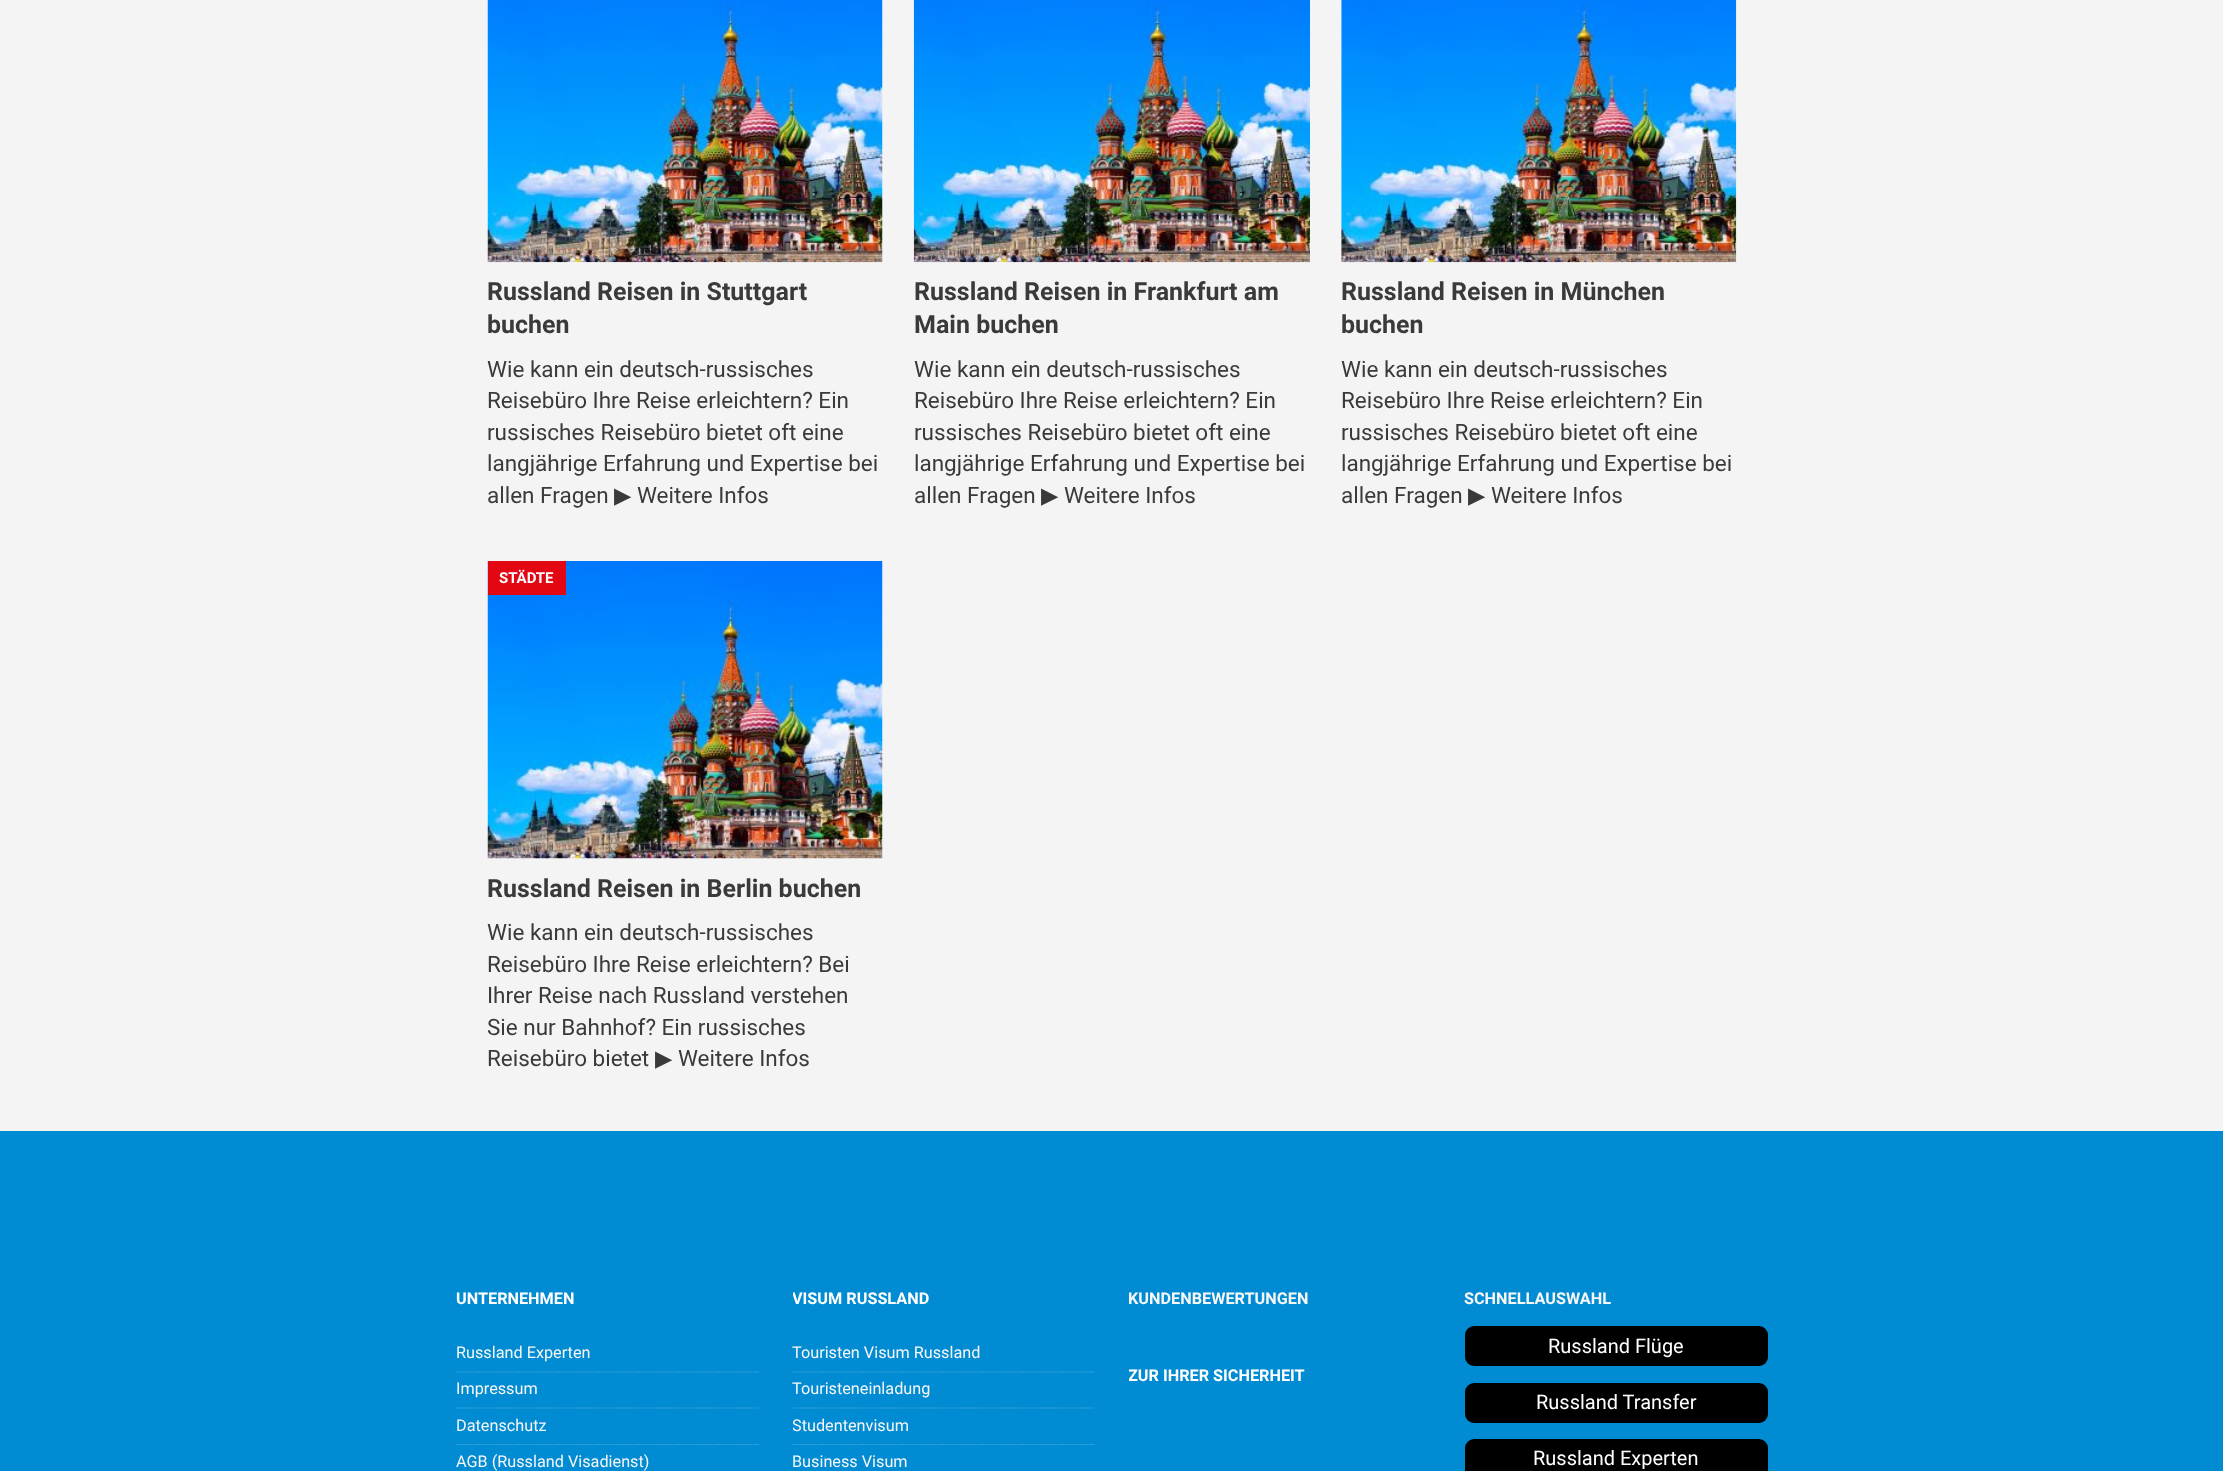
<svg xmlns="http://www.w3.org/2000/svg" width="2223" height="1471">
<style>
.a{font:bold 25px Roboto;fill:#3a3a3a}
.b{font:22.5px Roboto;fill:#3a3a3a}
.c{font:22.5px DejaVu Sans;fill:#3a3a3a}
.d{font:bold 15px Roboto;fill:#fff}
.e{font:bold 16.25px Roboto;fill:#fff}
.f{font:16.25px Roboto;fill:#f7f7f7}
.g{font:bold 16.25px Roboto;fill:#f7f7f7}
.h{font:20px Roboto;fill:#fff}
</style>
<defs>
<clipPath id="clip1"><path d="M488 0h1250v1100H488z"/></clipPath>
<clipPath id="clip2"><path d="M793 1288h302v22H793z"/></clipPath>
<clipPath id="clip3"><path d="M793 1341h302v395H793z"/></clipPath>
<clipPath id="clip4"><path d="M1129 1365h302v70H1129z"/></clipPath>
</defs>
<rect width="100%" height="100%" fill="#f4f4f4"/>
<path fill="none" stroke="#f7f7f7" stroke-width="1.2" stroke-dasharray="1.25 1.25" d="M487.5 535.5h1250"/>
<image href="1.png" x="487" y="0" width="396" height="263"/>
<image href="2.png" x="913" y="0" width="397" height="263"/>
<image href="3.png" x="1341" y="0" width="396" height="263"/>
<g clip-path="url(#clip1)">
<path fill="none" stroke="#f7f7f7" stroke-width="1.2" stroke-dasharray="1.25 1.25" d="M487.5 1099.5h1250"/>
</g>
<image href="4.png" x="487" y="561" width="396" height="298"/>
<path fill="#e30613" d="M488 561h78v34H488z"/>
<path fill="#008bd2" d="M0 1131h2223v340H0z"/>
<path fill="none" stroke="#4daee0" stroke-width="1.2" stroke-dasharray="1.25 1.25" d="M456 1372h303"/>
<path fill="none" stroke="#4daee0" stroke-width="1.2" stroke-dasharray="1.25 1.25" d="M456 1408h303"/>
<path fill="none" stroke="#4daee0" stroke-width="1.2" stroke-dasharray="1.25 1.25" d="M456 1444.5h303"/>
<path fill="none" stroke="#4daee0" stroke-width="1.2" stroke-dasharray="1.25 1.25" d="M792.5 1372h302.5"/>
<path fill="none" stroke="#4daee0" stroke-width="1.2" stroke-dasharray="1.25 1.25" d="M792.5 1408h302.5"/>
<path fill="none" stroke="#4daee0" stroke-width="1.2" stroke-dasharray="1.25 1.25" d="M792.5 1444.5h302.5"/>
<rect fill="#000" x="1465" y="1326" width="303" height="40" rx="9"/>
<rect fill="#000" x="1465" y="1383" width="303" height="40" rx="9"/>
<rect fill="#000" x="1465" y="1439" width="303" height="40" rx="9"/>
<text class="a" x="487" y="300">Russland Reisen in Stuttgart</text>
<text class="a" x="487" y="333">buchen</text>
<text class="b" x="487" y="377">Wie kann ein deutsch-russisches</text>
<text class="b" x="487" y="408">Reisebüro Ihre Reise erleichtern? Ein</text>
<text class="b" x="487" y="440">russisches Reisebüro bietet oft eine</text>
<text class="b" x="487" y="471">langjährige Erfahrung und Expertise bei</text>
<text class="b" x="487" y="503">allen Fragen</text>
<text class="c" x="614" y="503">▶</text>
<text class="b" x="637" y="503">Weitere Infos</text>
<text class="a" x="914" y="300">Russland Reisen in Frankfurt am</text>
<text class="a" x="914" y="333">Main buchen</text>
<text class="b" x="914" y="377">Wie kann ein deutsch-russisches</text>
<text class="b" x="914" y="408">Reisebüro Ihre Reise erleichtern? Ein</text>
<text class="b" x="914" y="440">russisches Reisebüro bietet oft eine</text>
<text class="b" x="914" y="471">langjährige Erfahrung und Expertise bei</text>
<text class="b" x="914" y="503">allen Fragen</text>
<text class="c" x="1041" y="503">▶</text>
<text class="b" x="1064" y="503">Weitere Infos</text>
<text class="a" x="1341" y="300">Russland Reisen in München</text>
<text class="a" x="1341" y="333">buchen</text>
<text class="b" x="1341" y="377">Wie kann ein deutsch-russisches</text>
<text class="b" x="1341" y="408">Reisebüro Ihre Reise erleichtern? Ein</text>
<text class="b" x="1341" y="440">russisches Reisebüro bietet oft eine</text>
<text class="b" x="1341" y="471">langjährige Erfahrung und Expertise bei</text>
<text class="b" x="1341" y="503">allen Fragen</text>
<text class="c" x="1468" y="503">▶</text>
<text class="b" x="1491" y="503">Weitere Infos</text>
<text class="d" x="499" y="583">STÄDTE</text>
<text class="a" x="487" y="897">Russland Reisen in Berlin buchen</text>
<text class="b" x="487" y="940">Wie kann ein deutsch-russisches</text>
<text class="b" x="487" y="972">Reisebüro Ihre Reise erleichtern? Bei</text>
<text class="b" x="487" y="1003">Ihrer Reise nach Russland verstehen</text>
<text class="b" x="487" y="1035">Sie nur Bahnhof? Ein russisches</text>
<text class="b" x="487" y="1066">Reisebüro bietet</text>
<text class="c" x="655" y="1066">▶</text>
<text class="b" x="678" y="1066">Weitere Infos</text>
<text class="e" x="456" y="1304">UNTERNEHMEN</text>
<text class="f" x="456" y="1358">Russland Experten</text>
<text class="f" x="456" y="1394">Impressum</text>
<text class="f" x="456" y="1431">Datenschutz</text>
<text class="f" x="456" y="1467">AGB (Russland Visadienst)</text>
<g clip-path="url(#clip2)">
<text class="e" x="792" y="1304">VISUM RUSSLAND</text>
</g>
<text class="f" x="792" y="1358">Touristen Visum Russland</text>
<text class="f" x="792" y="1394">Touristeneinladung</text>
<g clip-path="url(#clip3)">
<text class="f" x="792" y="1431">Studentenvisum</text>
</g>
<text class="f" x="792" y="1467">Business Visum</text>
<text class="g" x="1128" y="1304">KUNDENBEWERTUNGEN</text>
<g clip-path="url(#clip4)">
<text class="e" x="1128" y="1381">ZUR IHRER SICHERHEIT</text>
</g>
<text class="g" x="1464" y="1304">SCHNELLAUSWAHL</text>
<text class="h" x="1548" y="1353">Russland Flüge</text>
<text class="h" x="1536" y="1409">Russland Transfer</text>
<text class="h" x="1533" y="1465">Russland Experten</text>
</svg>
